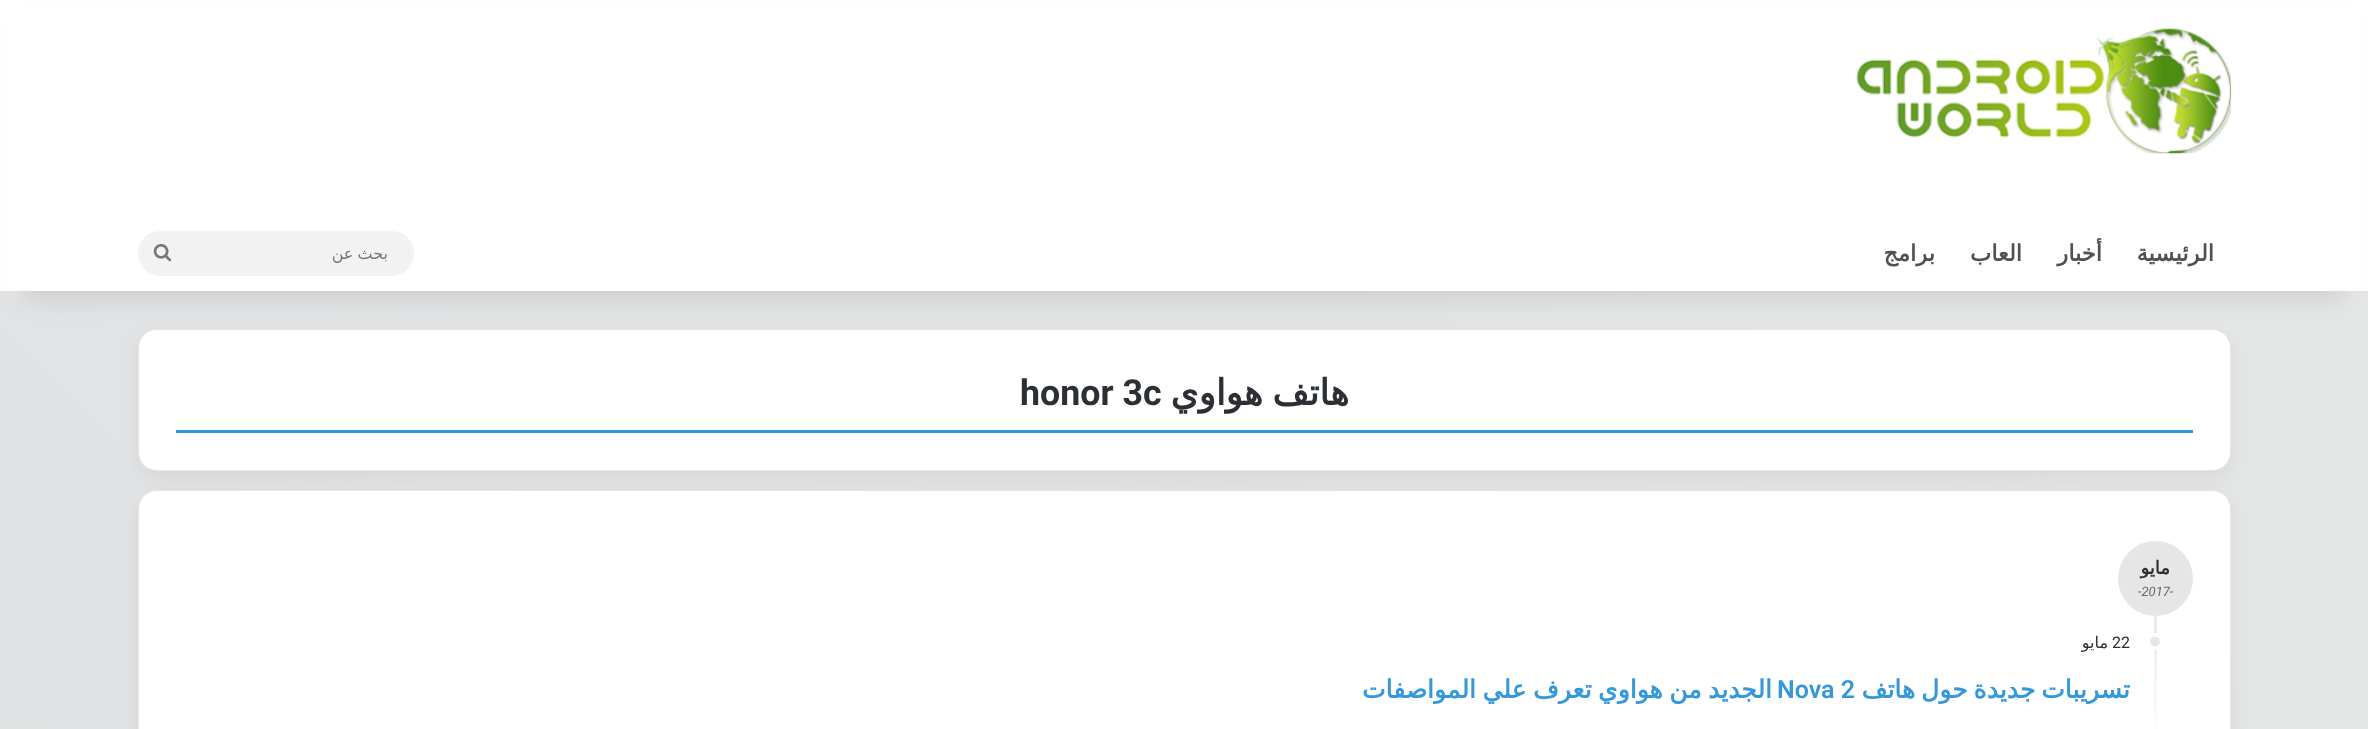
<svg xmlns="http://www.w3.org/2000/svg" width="2368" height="729">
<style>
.a{font:bold 22.5px DejaVu Sans;direction:rtl;fill:#515151}
.b{font:16px DejaVu Sans;direction:rtl;fill:#777}
.c{font:bold 35.75px DejaVu Sans;direction:rtl;fill:#2c2f34}
.d{font:bold 35.75px Roboto;fill:#2c2f34}
.e{font:bold 18px DejaVu Sans;direction:rtl;fill:#2c2f34}
.f{font:italic 13px Roboto;fill:#646669}
.g{font:16px Roboto;fill:#2c2f34}
.h{font:16px DejaVu Sans;direction:rtl;fill:#2c2f34}
.i{font:bold 25px DejaVu Sans;direction:rtl;fill:#3498db}
.j{font:600 25px Roboto;fill:#3498db}
</style>
<defs>
<linearGradient id="g1" gradientUnits="userSpaceOnUse" x1="351" y1="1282" x2="2018" y2="-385"><stop offset="0" stop-color="#e1e2e3"/><stop offset="1" stop-color="#e5e6e6"/></linearGradient>
<linearGradient id="g2" gradientUnits="userSpaceOnUse" x1="2155" y1="591" x2="2155" y2="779"><stop offset="0" stop-color="#e5e5e5"/><stop offset="0.8" stop-color="#fff"/></linearGradient>
</defs>
<rect width="100%" height="100%" fill="#fff"/>
<path fill="url(#g1)" d="M0 291h2368v438H0z"/>
<rect fill="#0000000d" filter="blur(9.5px)" x="138" y="335" width="2093" height="143" rx="19"/>
<rect fill="#fff" x="138" y="329" width="2093" height="142" rx="19"/>
<rect fill="none" stroke="#0000001a" x="138.5" y="329.5" width="2092" height="141" rx="18.5"/>
<path fill="#0000001a" filter="blur(12.5px)" d="M25 23h2319v275H25z"/>
<path fill="#fff" d="M9 7h2351v284H9z"/>
<image href="1.png" x="1856" y="28" width="376" height="126"/>
<rect fill="#f2f2f2" x="138" y="231" width="276" height="45" rx="22.5"/>
<image href="2.png" x="153" y="243" width="19" height="19"/>
<path fill="#3498db" d="M176 430h2017v3H176z"/>
<rect fill="#0000000d" filter="blur(9.5px)" x="138" y="496" width="2093" height="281" rx="19"/>
<rect fill="#fff" x="138" y="490" width="2093" height="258" rx="19"/>
<rect fill="none" stroke="#0000001a" x="138.5" y="490.5" width="2092" height="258" rx="18.5"/>
<path fill="url(#g2)" d="M2154 615h3v114H2154z"/>
<circle fill="#e6e6e6" cx="2155.5" cy="578.5" r="37.5"/>
<rect fill="#e6e6e6" stroke="#fff" stroke-width="4" x="2148" y="635" width="14" height="13" rx="6.5"/>
<text class="a" x="2214" y="261">الرئيسية</text>
<text class="a" x="2102" y="261">أخبار</text>
<text class="a" x="2022" y="261">العاب</text>
<text class="a" x="1935" y="261">برامج</text>
<text class="b" x="388" y="259" word-spacing="-1">بحث عن</text>
<text class="c" x="1349" y="405" word-spacing="-2">هاتف هواوي</text>
<text class="d" x="1020" y="405">honor 3c</text>
<text class="e" x="2170" y="574">مايو</text>
<text class="f" x="2138" y="596">-2017-</text>
<text class="g" x="2112" y="648">22</text>
<text class="h" x="2108" y="648">مايو</text>
<text class="i" x="2130" y="698" word-spacing="-2">تسريبات جديدة حول هاتف</text>
<text class="j" x="1777" y="698">Nova 2</text>
<text class="i" x="1772" y="698" word-spacing="-1.5">الجديد من هواوي تعرف علي المواصفات</text>
</svg>
